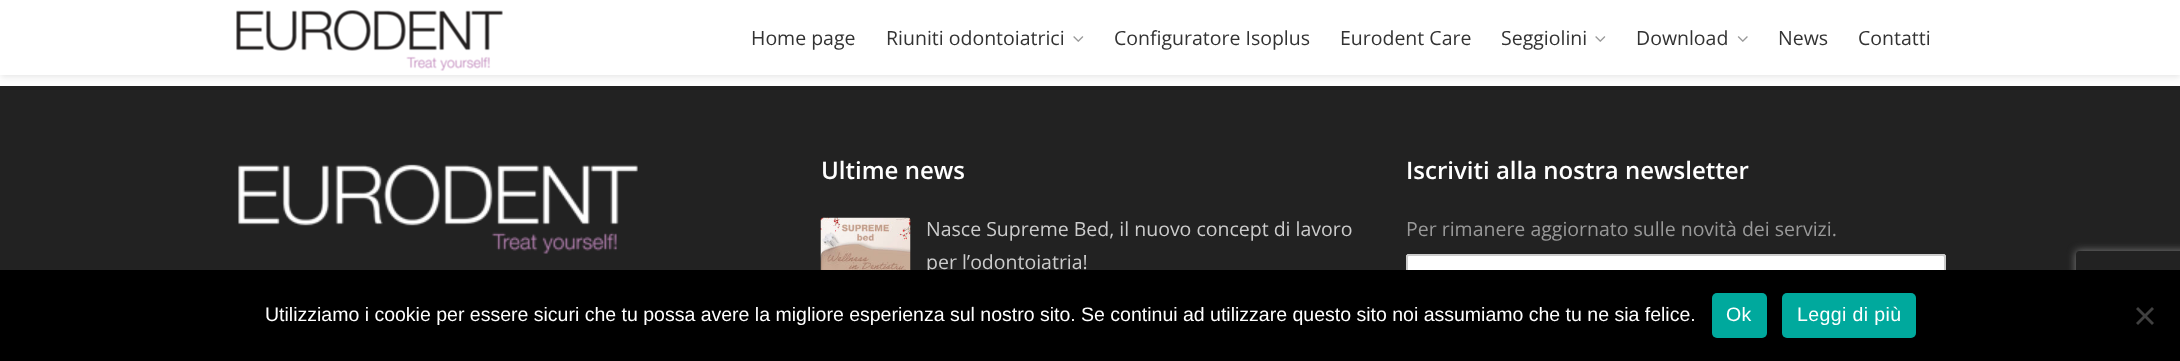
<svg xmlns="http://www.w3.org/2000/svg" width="2180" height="361">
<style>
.a{font:19.5px Open Sans;fill:#333}
.b{font:600 24px Open Sans;fill:#fff}
.c{font:19.5px Open Sans;fill:#ccc}
.d{font:19.5px Open Sans;fill:#999}
.e{font:19.5px Liberation Sans;fill:#fff}
.f{font:19.5px Liberation Sans;letter-spacing:0.4px;fill:#fff}
</style>
<defs>
<clipPath id="clip1"><path d="M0 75h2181v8H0z"/></clipPath>
<clipPath id="clip2"><path d="M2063 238h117v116h-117zm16 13h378c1.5 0 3 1.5 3 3v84c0 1.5-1.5 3-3 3h-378c-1.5 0-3-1.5-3-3v-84c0-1.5 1.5-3 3-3z" clip-rule="evenodd"/></clipPath>
</defs>
<rect width="100%" height="100%" fill="#fff"/>
<image href="1.png" x="236" y="10" width="267" height="61"/>
<image href="2.png" x="1073" y="36" width="11" height="6"/>
<image href="2.png" x="1595" y="36" width="11" height="6"/>
<image href="3.png" x="1737" y="36" width="11" height="6"/>
<path fill="#222" d="M0 86h2180v184H0z"/>
<g clip-path="url(#clip1)">
<rect fill="#0000001a" filter="blur(3px)" y="69" width="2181" height="8" rx="4"/>
</g>
<image href="4.png" x="238" y="164" width="400" height="90"/>
<image href="5.png" x="820" y="217" width="91" height="53"/>
<rect fill="#fff" x="1406" y="254" width="540" height="51" rx="3"/>
<path fill="#ececec" d="M1408 256h534c1 0 2 1 2 2c0-1 0-2-1-3h-535l-1 1v2z"/>
<rect fill="none" stroke="#ccc" stroke-width="2" x="1407" y="255" width="538" height="49" rx="2"/>
<g clip-path="url(#clip2)">
<rect fill="#808080" filter="blur(4px)" x="2076" y="251" width="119" height="90" rx="3"/>
</g>
<text class="a" x="751" y="45">Home page</text>
<text class="a" x="886" y="45">Riuniti odontoiatrici</text>
<text class="a" x="1114" y="45">Configuratore Isoplus</text>
<text class="a" x="1340" y="45">Eurodent Care</text>
<text class="a" x="1501" y="45">Seggiolini</text>
<text class="a" x="1636" y="45">Download</text>
<text class="a" x="1778" y="45">News</text>
<text class="a" x="1858" y="45">Contatti</text>
<text class="b" x="821" y="179">Ultime news</text>
<text class="c" x="926" y="236">Nasce Supreme Bed, il nuovo concept di lavoro</text>
<text class="c" x="926" y="269">per l’odontoiatria!</text>
<text class="b" x="1406" y="179">Iscriviti alla nostra newsletter</text>
<text class="d" x="1406" y="236">Per rimanere aggiornato sulle novità dei servizi.</text>
<path fill="#000" d="M0 270h2180v91H0z"/>
<text class="e" x="265" y="321">Utilizziamo i cookie per essere sicuri che tu possa avere la migliore esperienza sul nostro sito. Se continui ad utilizzare questo sito noi assumiamo che tu ne sia felice.</text>
<rect fill="#00a99d" x="1712" y="293" width="55" height="45" rx="5"/>
<text class="f" x="1726" y="321">Ok</text>
<rect fill="#00a99d" x="1782" y="293" width="134" height="45" rx="5"/>
<text class="f" x="1797" y="321">Leggi di più</text>
<path fill="#404040" d="M2152 307l2 2l-16 16l-2-2z"/>
<path fill="#404040" d="M2136 309l2-2l16 16l-2 2z"/>
</svg>
